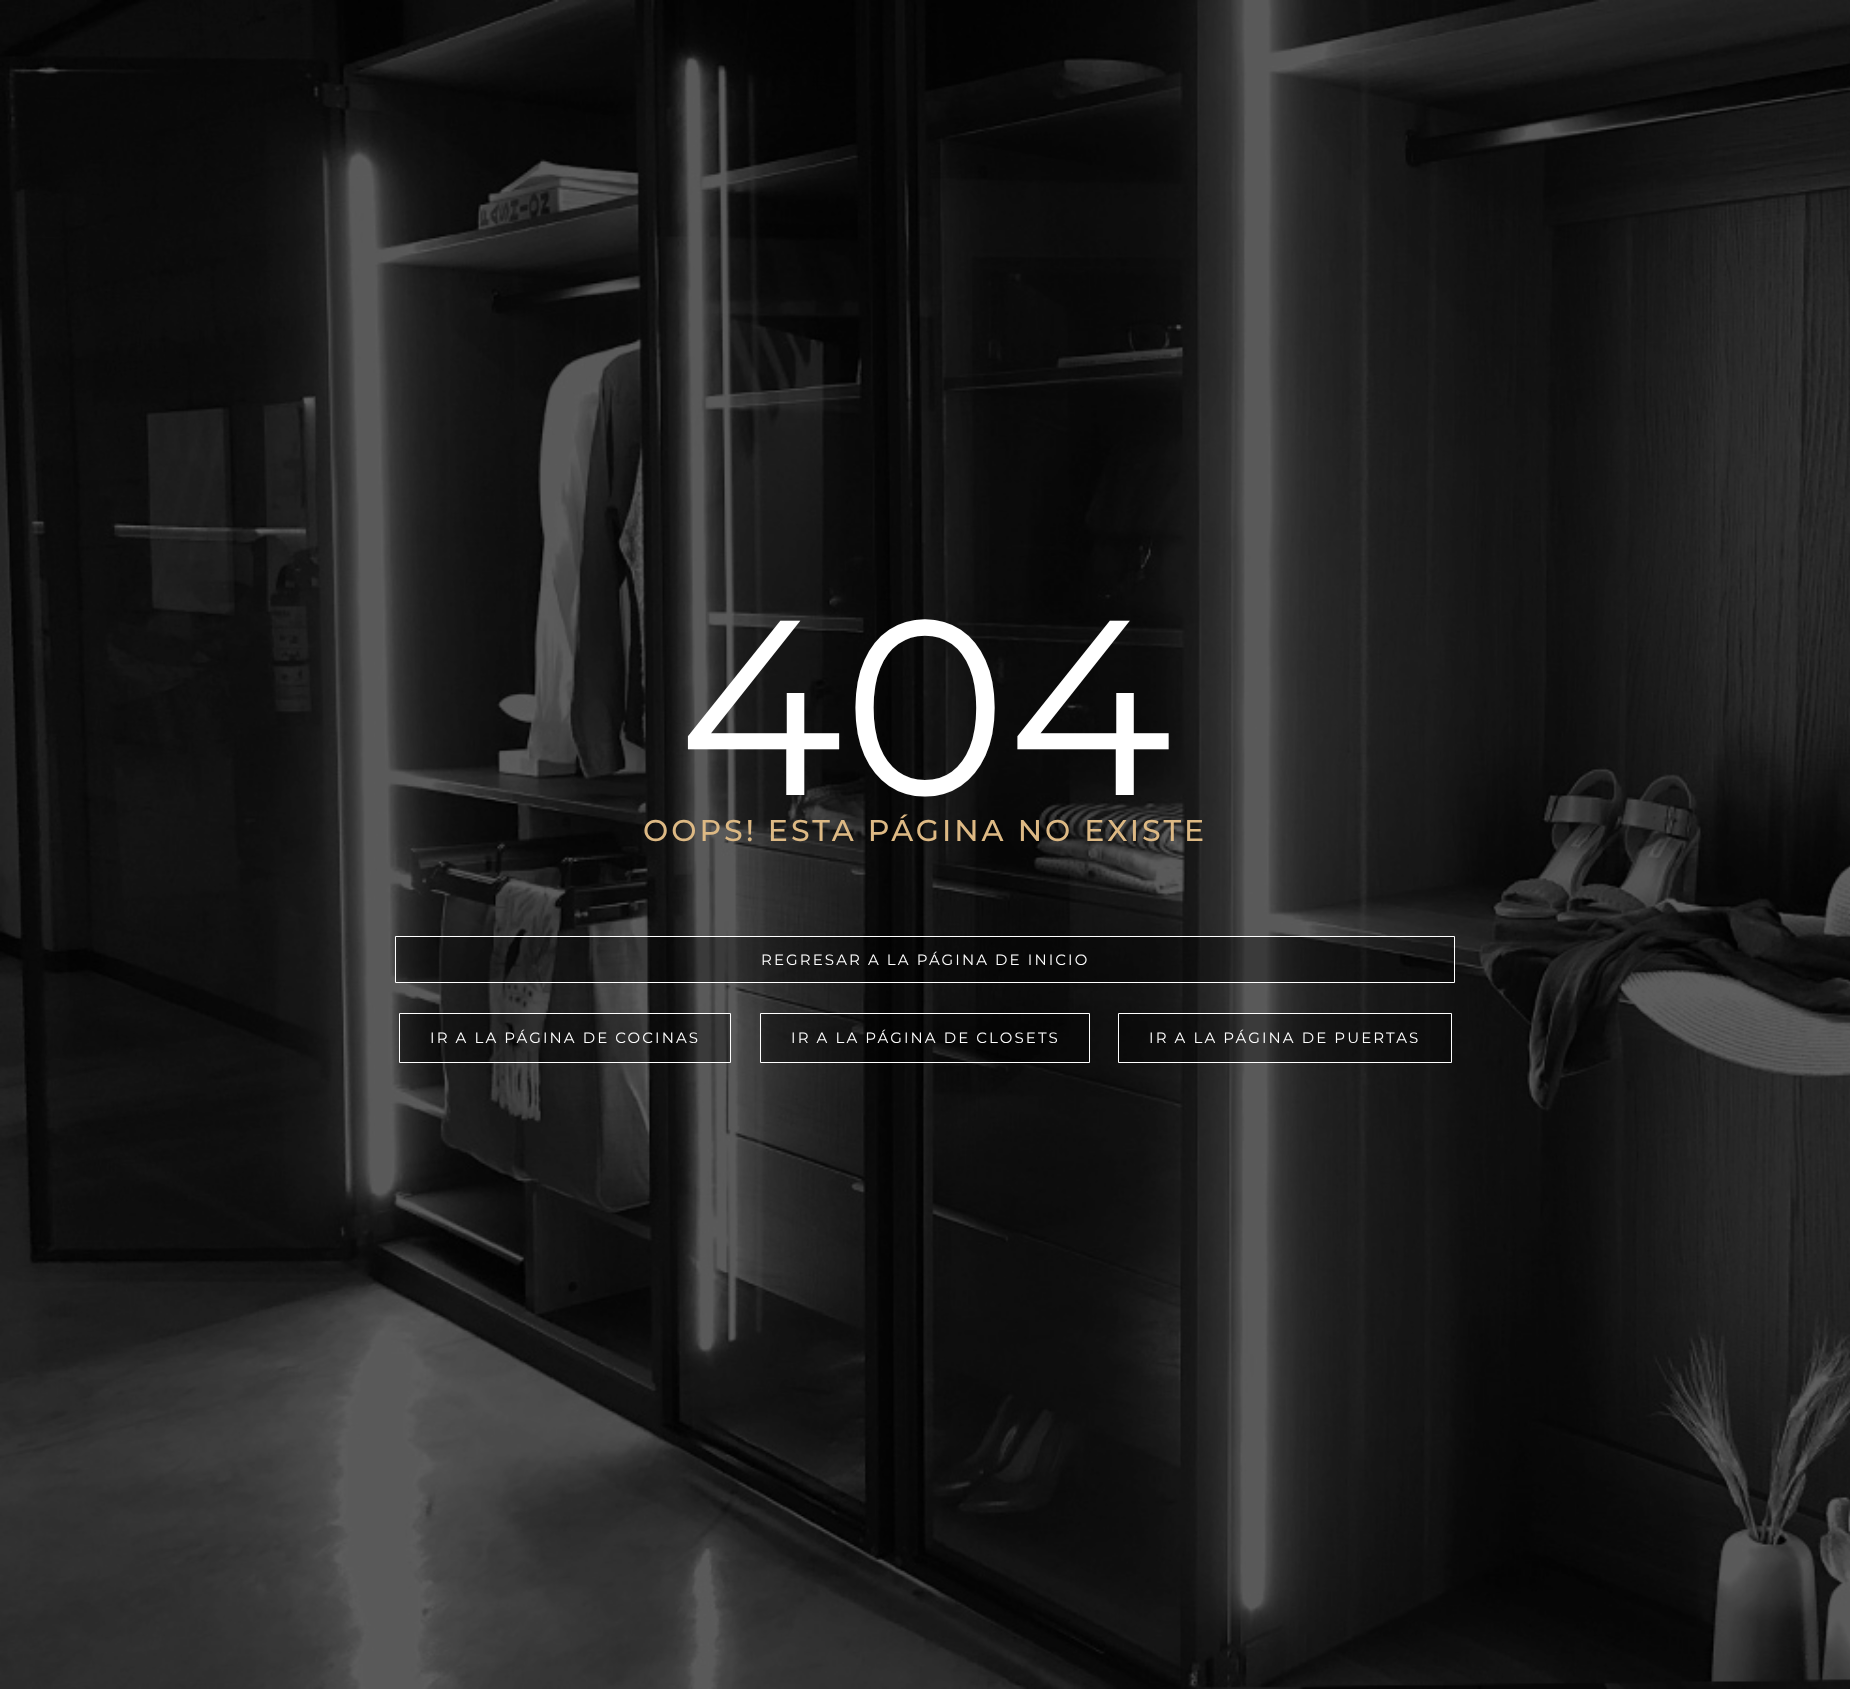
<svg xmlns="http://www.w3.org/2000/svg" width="1850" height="1689">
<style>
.a{font:249px Montserrat;fill:#fff}
.b{font:500 30px Montserrat;letter-spacing:3px;fill:#ddb984}
.c{font:15px Montserrat;letter-spacing:2.1px;fill:#fff}
</style>
<rect width="100%" height="100%" fill="#fff"/>
<image href="1.png" x="0" y="0" width="1850" height="1689"/>
<path fill="#00000059" stroke="#fff" d="M395.5 936.5h1059v46H395.5z"/>
<path fill="#00000059" stroke="#fff" d="M399.5 1013.5h331v49H399.5z"/>
<path fill="#00000059" stroke="#fff" d="M760.5 1013.5h329v49H760.5z"/>
<path fill="#00000059" stroke="#fff" d="M1118.5 1013.5h333v49H1118.5z"/>
<text class="a" x="678" y="795">404</text>
<text class="b" x="643" y="841">OOPS! ESTA PÁGINA NO EXISTE</text>
<text class="c" x="761" y="965">REGRESAR A LA PÁGINA DE INICIO</text>
<text class="c" x="430" y="1043">IR A LA PÁGINA DE COCINAS</text>
<text class="c" x="791" y="1043">IR A LA PÁGINA DE CLOSETS</text>
<text class="c" x="1149" y="1043">IR A LA PÁGINA DE PUERTAS</text>
</svg>
